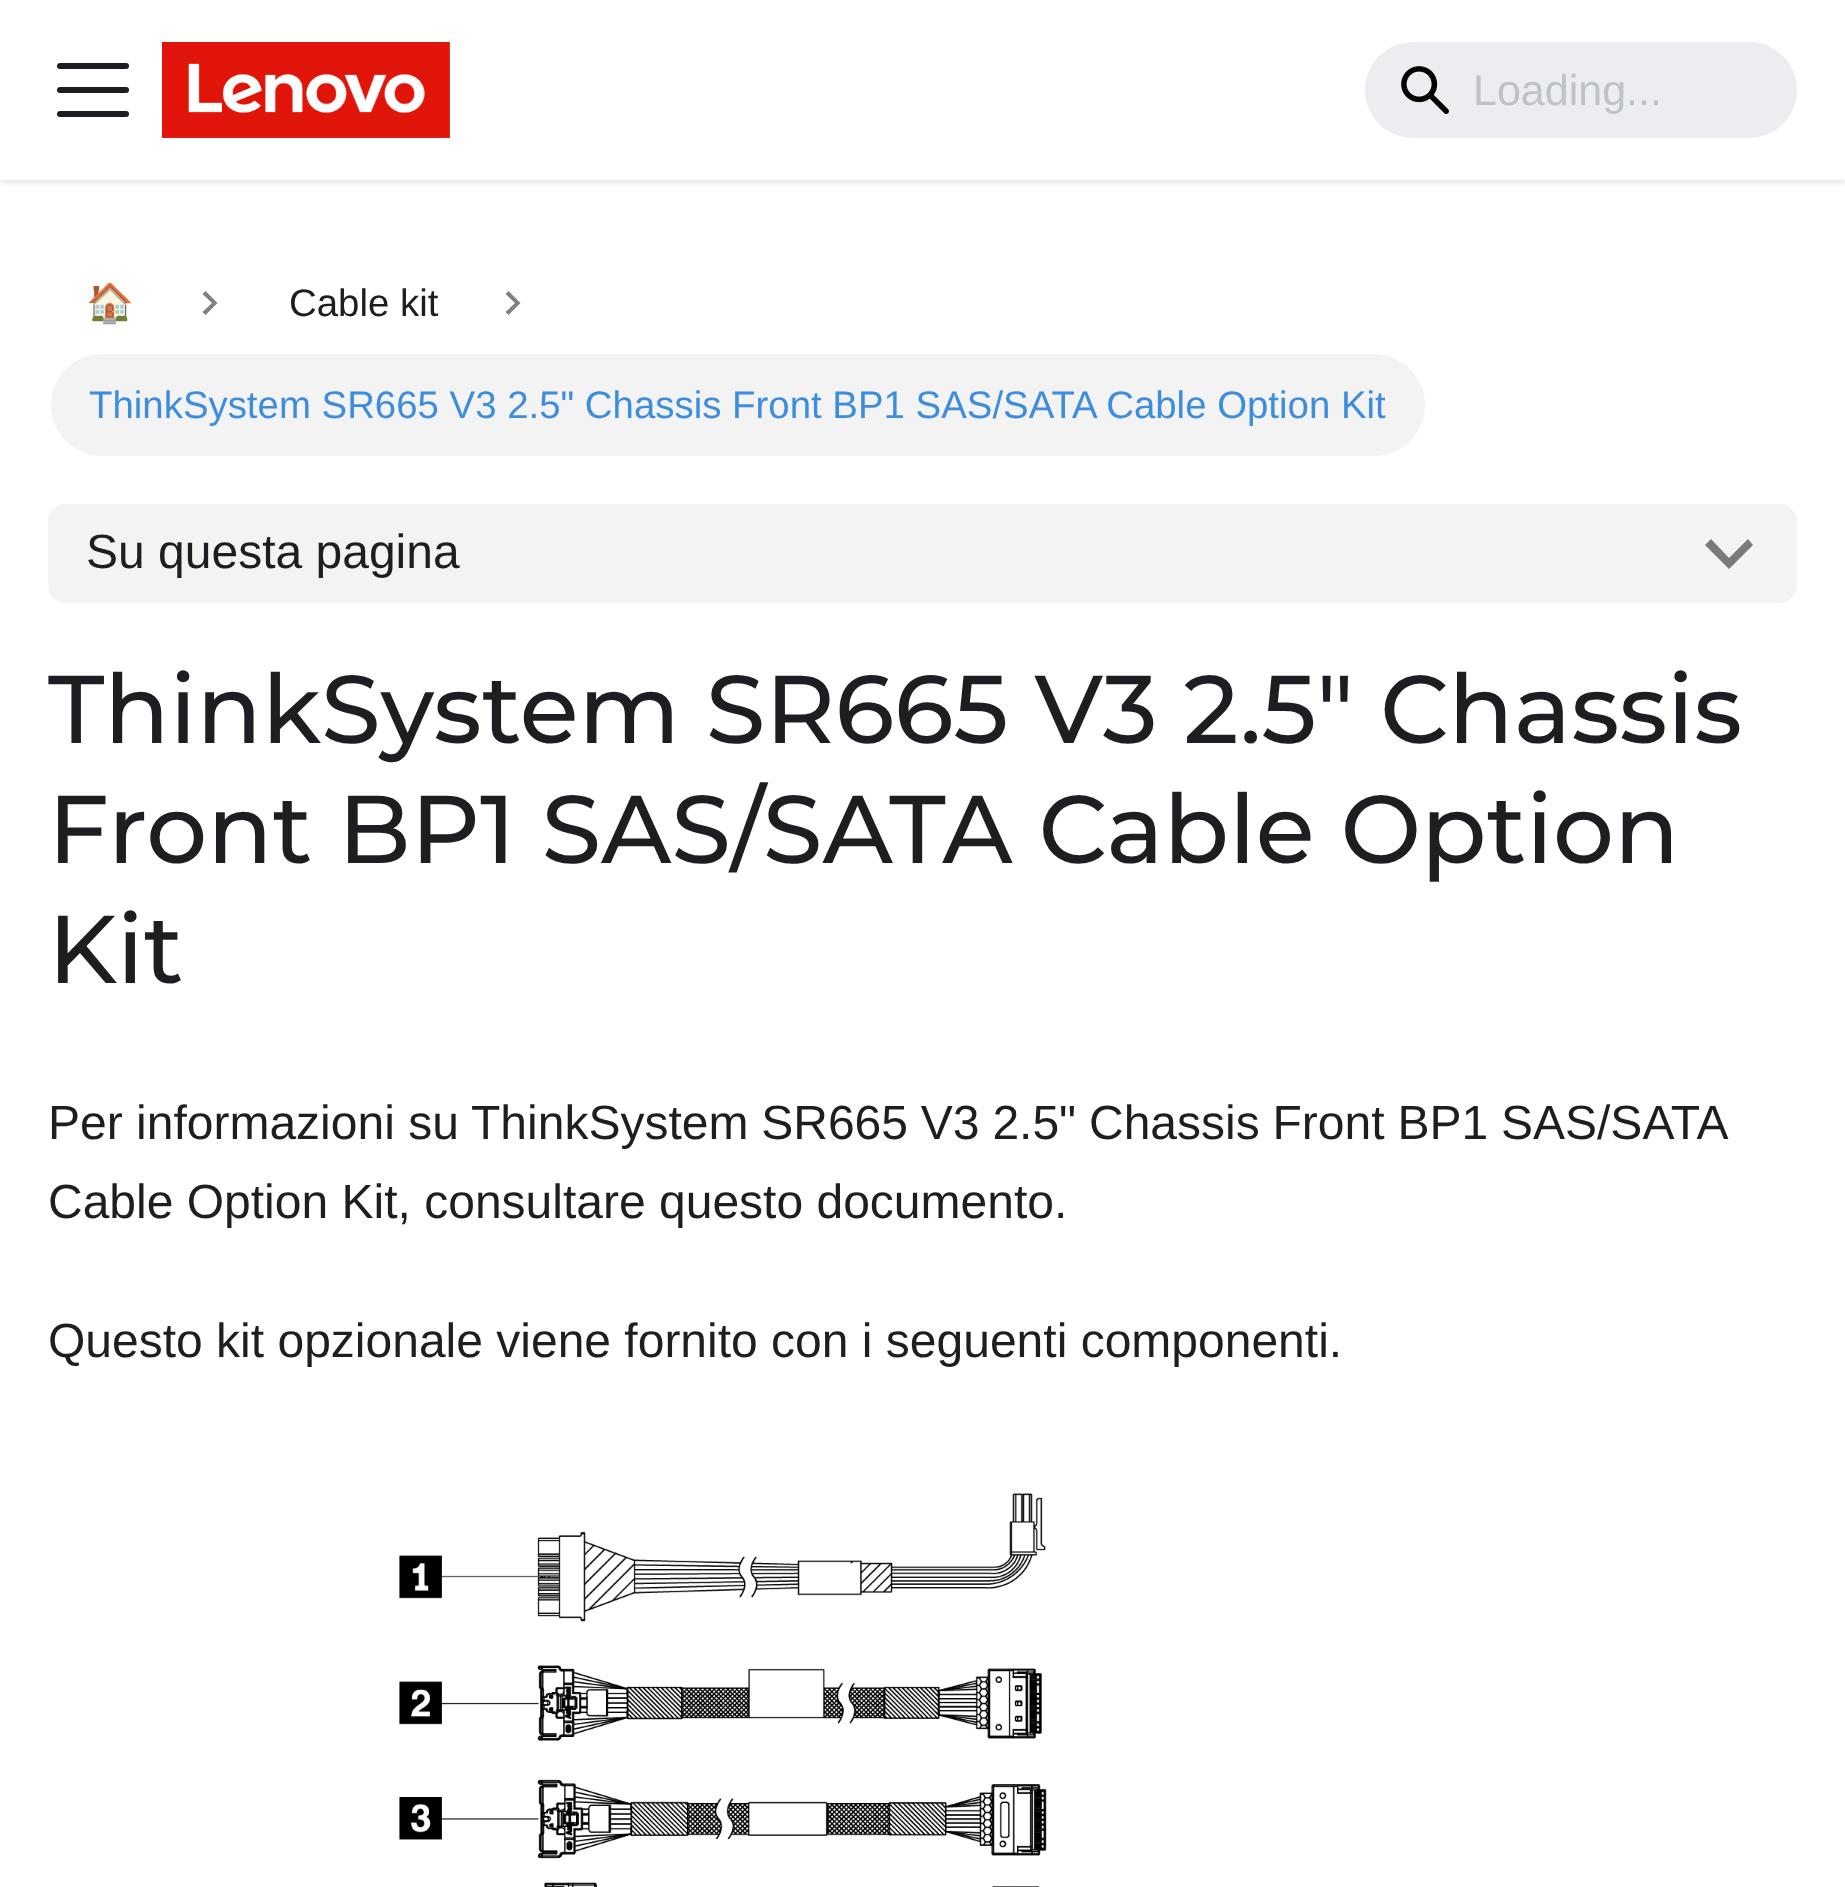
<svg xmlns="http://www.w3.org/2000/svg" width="1845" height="1887">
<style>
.a{font:43px Liberation Sans;fill:#bec3c9}
.b{font:38.4px Noto Color Emoji;fill:#1c1e21}
.c{font:38.4px Liberation Sans;fill:#1c1e21}
.d{font:38.4px Liberation Sans;fill:#3e8ddd}
.e{font:48px Liberation Sans;fill:#1c1e21}
.f{font:500 96px Montserrat;fill:#1c1e21}
</style>
<defs>
<clipPath id="clip1"><path d="M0 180h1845v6H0z"/></clipPath>
</defs>
<rect width="100%" height="100%" fill="#fff"/>
<g clip-path="url(#clip1)">
<path fill="#0000001a" filter="blur(3px)" d="M0 3h1845v180H0z"/>
</g>
<path fill="none" stroke="#1c1e21" stroke-width="6" stroke-linecap="round" d="M60 66h66m-66 24h66m-66 24h66"/>
<image href="1.png" x="162" y="42" width="288" height="96"/>
<rect fill="#ebedf0" x="1365" y="42" width="432" height="96" rx="48"/>
<image href="2.png" x="1401" y="66" width="48" height="48"/>
<path fill="#808080" d="M205.5 291l-3 3l9.5 9l-9.5 9l3 3l12-12z"/>
<path fill="#808080" d="M508.5 291l-3 3l9.5 9l-9.5 9l3 3l12-12z"/>
<rect fill="#f3f3f3" x="51" y="354" width="1374" height="102" rx="51"/>
<rect fill="#f3f3f3" x="48" y="504" width="1749" height="99" rx="18"/>
<path fill="#7a7a7a" d="M1748 539l-19 19l-18-19l-6 6l24 24l24-24z"/>
<image href="3.png" x="399" y="1493" width="648" height="394"/>
<text class="a" x="1473" y="105">Loading...</text>
<text class="b" x="86" y="316">🏠</text>
<text class="c" x="289" y="316">Cable kit</text>
<text class="d" x="89" y="418">ThinkSystem SR665 V3 2.5" Chassis Front BP1 SAS/SATA Cable Option Kit</text>
<text class="e" x="86" y="568">Su questa pagina</text>
<text class="f" x="48" y="743">ThinkSystem SR665 V3 2.5" Chassis</text>
<text class="f" x="48" y="863">Front BP1 SAS/SATA Cable Option</text>
<text class="f" x="48" y="983">Kit</text>
<text class="e" x="48" y="1139">Per informazioni su</text>
<text class="e" x="471" y="1139" word-spacing="-0.5">ThinkSystem SR665 V3 2.5" Chassis Front BP1 SAS/SATA</text>
<text class="e" x="48" y="1218">Cable Option Kit, consultare questo documento.</text>
<text class="e" x="48" y="1357">Questo kit opzionale viene fornito con i seguenti componenti.</text>
</svg>
